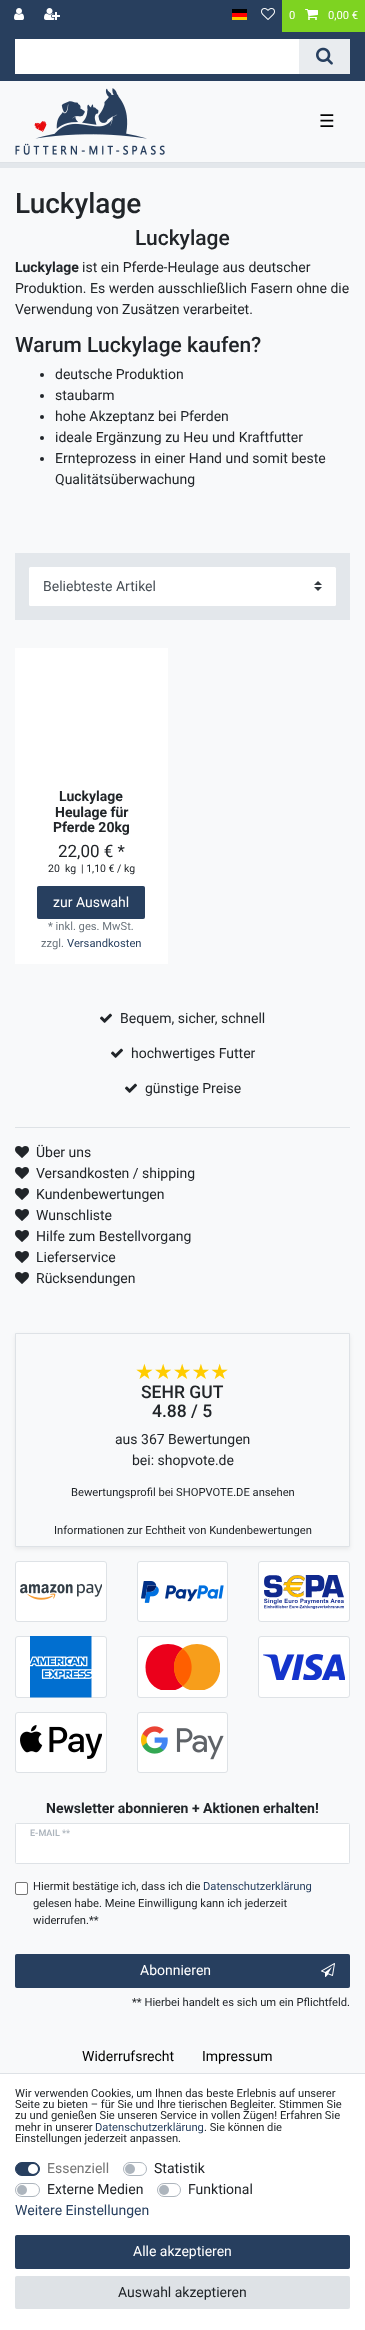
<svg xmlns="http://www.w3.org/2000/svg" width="365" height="2330">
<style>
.a{font:11.2px Roboto;fill:#fff}
.b{font:17.5px DejaVu Sans;fill:#000}
.c{font:500 28px Roboto;fill:#212529}
.d{font:500 21px Roboto;fill:#212529}
.e{font:bold 14px Roboto;fill:#212529}
.f{font:14px Roboto;fill:#212529}
.g{font:14px Roboto;fill:#495057}
.h{font:17px Roboto;fill:#212529}
.i{font:10.5px Roboto;fill:#212529}
.j{font:14px Roboto;fill:#fff}
.k{font:11.2px Roboto;fill:#6c757d}
.l{font:11.2px Roboto;fill:#273f5f}
.m{font:21px DejaVu Sans;fill:url(#g1)}
.n{font:500 17.5px Roboto;fill:#212529}
.o{font:11.2px Roboto;fill:#212529}
.p{font:600 9px Roboto;fill:#adb5bd}
.q{font:14px Roboto;fill:#000}
.r{font:14px Roboto;fill:#767676}
.s{font:14px Roboto;fill:#273f5f}
</style>
<defs>
<clipPath id="clip1"><path d="M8 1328h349v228h-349zm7 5h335v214h-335z" clip-rule="evenodd"/></clipPath>
<clipPath id="clip2"><path d="M145 1644h75v46H145z"/></clipPath>
<linearGradient id="g1" gradientUnits="userSpaceOnUse" x1="135" y1="1372" x2="230" y2="1372"><stop offset="0.98" stop-color="#fc0"/><stop offset="0.98" stop-color="#eee"/></linearGradient>
</defs>
<rect width="100%" height="100%" fill="#f8f9fa"/>
<path fill="#283f5e" d="M0 0h365v81H0z"/>
<image href="1.png" x="14" y="8" width="10" height="12"/>
<image href="2.png" x="44" y="8" width="16" height="12"/>
<path fill="#fc0" d="M232 17h15v3H232z"/>
<path fill="#000" d="M232 9h15v4H232z"/>
<path fill="#f00" d="M232 13h15v4H232z"/>
<image href="3.png" x="261" y="8" width="14" height="12"/>
<path fill="#7ed321" d="M282 0h83v32H282z"/>
<image href="4.png" x="305" y="9" width="13" height="11"/>
<path fill="#fff" d="M15 39h284v35H15z"/>
<path fill="#e9ecef" d="M299 39h51v35H299z"/>
<image href="5.png" x="316" y="47" width="17" height="18"/>
<path fill="#dee2e6" d="M0 162h365v1H0z"/>
<image href="6.png" x="15" y="88" width="150" height="67"/>
<path fill="#e3e7eb" d="M0 163h365v5H0z"/>
<circle fill="#212529" cx="42" cy="375" r="2"/>
<circle fill="#212529" cx="42" cy="396" r="2"/>
<circle fill="#212529" cx="42" cy="417" r="2"/>
<circle fill="#212529" cx="42" cy="438" r="2"/>
<circle fill="#212529" cx="42" cy="459" r="2"/>
<path fill="#e3e7eb" d="M15 553h335v67H15z"/>
<rect fill="#fff" x="29" y="567" width="307" height="39" rx="1.5"/>
<image href="7.png" x="314" y="581" width="8" height="10"/>
<path fill="#fff" d="M15 648h153v316H15z"/>
<rect fill="#273f5f" stroke="#273f5f" x="37.5" y="886.5" width="107" height="32" rx="1"/>
<image href="8.png" x="100" y="1013" width="12" height="10"/>
<image href="8.png" x="111" y="1048" width="12" height="10"/>
<image href="8.png" x="125" y="1083" width="12" height="10"/>
<path fill="#dee2e6" d="M15 1127h335v1H15z"/>
<image href="9.png" x="15" y="1146" width="14" height="12"/>
<image href="9.png" x="15" y="1167" width="14" height="12"/>
<image href="9.png" x="15" y="1188" width="14" height="12"/>
<image href="9.png" x="15" y="1209" width="14" height="12"/>
<image href="9.png" x="15" y="1230" width="14" height="12"/>
<image href="9.png" x="15" y="1251" width="14" height="12"/>
<image href="9.png" x="15" y="1272" width="14" height="12"/>
<g clip-path="url(#clip1)">
<path fill="#00000012" filter="blur(2px)" d="M15 1335h335v214H15z"/>
</g>
<path fill="none" stroke="#dee2e6" d="M15.5 1333.5h334v213H15.5z"/>
<rect fill="#fff" stroke="#dee2e6" x="15.5" y="1561.5" width="91" height="60" rx="2.5"/>
<image href="10.png" x="20" y="1584" width="82" height="16"/>
<rect fill="#fff" stroke="#dee2e6" x="137.5" y="1561.5" width="90" height="60" rx="2.5"/>
<image href="11.png" x="141" y="1581" width="83" height="22"/>
<rect fill="#fff" stroke="#dee2e6" x="258.5" y="1561.5" width="91" height="60" rx="2.5"/>
<image href="12.png" x="264" y="1575" width="80" height="34"/>
<rect fill="#fff" stroke="#dee2e6" x="15.5" y="1636.5" width="91" height="61" rx="2.5"/>
<image href="13.png" x="30" y="1636" width="62" height="62"/>
<rect fill="#fff" stroke="#dee2e6" x="137.5" y="1636.5" width="90" height="61" rx="2.5"/>
<g clip-path="url(#clip2)">
<path fill="#eb001b" d="M168 1644c-30 0-30 47 0 47c31 0 31-47 0-47z"/>
<path fill="#f79e1b" d="M197 1644c-31 0-30 47 0 47c31 0 31-47 0-47z"/>
</g>
<path fill="#ff5f00" d="M183 1649c-12 9-12 27.5 0 37c11.5-9.5 11.5-28 0-37"/>
<rect fill="#fff" stroke="#dee2e6" x="258.5" y="1636.5" width="91" height="61" rx="2.5"/>
<image href="14.png" x="263" y="1654" width="82" height="26"/>
<rect fill="#fff" stroke="#dee2e6" x="15.5" y="1712.5" width="91" height="60" rx="2.5"/>
<image href="15.png" x="20" y="1725" width="82" height="34"/>
<rect fill="#fff" stroke="#dee2e6" x="137.5" y="1712.5" width="90" height="60" rx="2.5"/>
<image href="16.png" x="141" y="1726" width="83" height="34"/>
<rect fill="none" stroke="#dee2e6" x="15.5" y="1823.5" width="334" height="40" rx="1"/>
<rect fill="#fff" x="16" y="1824" width="333" height="39" rx="0.5"/>
<rect fill="#fff" stroke="#767676" x="15.5" y="1882.5" width="12" height="12" rx="1.5"/>
<rect fill="#273f5f" stroke="#273f5f" x="15.5" y="1954.5" width="334" height="33" rx="1"/>
<image href="17.png" x="321" y="1963" width="14" height="14"/>
<path fill="#fff" d="M0 2074h365v256H0z"/>
<path fill="#dee2e6" d="M0 2073h365v1H0z"/>
<rect fill="#273f5f" stroke="#273f5f" x="15.5" y="2162.5" width="24" height="13" rx="6.5"/>
<circle fill="#fff" cx="33" cy="2169" r="5"/>
<rect fill="none" stroke="#adb5bd" x="123.5" y="2162.5" width="23" height="13" rx="6.5"/>
<circle fill="#adb5bd" cx="130" cy="2169" r="5"/>
<rect fill="none" stroke="#adb5bd" x="15.5" y="2183.5" width="24" height="13" rx="6.5"/>
<circle fill="#adb5bd" cx="22" cy="2190" r="5"/>
<rect fill="none" stroke="#adb5bd" x="157.5" y="2183.5" width="23" height="13" rx="6.5"/>
<circle fill="#adb5bd" cx="164" cy="2190" r="5"/>
<rect fill="#273f5f" stroke="#273f5f" x="15.5" y="2235.5" width="334" height="33" rx="1"/>
<rect fill="#dee2e6" stroke="#dee2e6" x="15.5" y="2276.5" width="334" height="32" rx="1"/>
<text class="a" x="289" y="19">0</text>
<text class="a" x="328" y="19">0,00 €</text>
<text class="b" x="319" y="127">☰</text>
<text class="c" x="15" y="213">Luckylage</text>
<text class="d" x="135" y="245">Luckylage</text>
<text class="e" x="15" y="272">Luckylage</text>
<text class="f" x="82" y="272">ist ein Pferde-Heulage aus deutscher</text>
<text class="f" x="15" y="293">Produktion. Es werden ausschließlich Fasern ohne die</text>
<text class="f" x="15" y="314">Verwendung von Zusätzen verarbeitet.</text>
<text class="d" x="15" y="352">Warum Luckylage kaufen?</text>
<text class="f" x="55" y="379">deutsche Produktion</text>
<text class="f" x="55" y="400">staubarm</text>
<text class="f" x="55" y="421">hohe Akzeptanz bei Pferden</text>
<text class="f" x="55" y="442">ideale Ergänzung zu Heu und Kraftfutter</text>
<text class="f" x="55" y="463">Ernteprozess in einer Hand und somit beste</text>
<text class="f" x="55" y="484">Qualitätsüberwachung</text>
<text class="g" x="43" y="591">Beliebteste Artikel</text>
<text class="e" x="59" y="801">Luckylage</text>
<text class="e" x="55" y="817">Heulage für</text>
<text class="e" x="53" y="832">Pferde 20kg</text>
<text class="h" x="58" y="857">22,00 € *</text>
<text class="i" x="48" y="872">20</text>
<text class="i" x="65" y="872">kg</text>
<text class="i" x="81" y="872">| 1,10 € / kg</text>
<text class="j" x="53" y="907">zur Auswahl</text>
<text class="k" x="48" y="930">* inkl. ges. MwSt.</text>
<text class="k" x="41" y="947">zzgl.</text>
<text class="l" x="67" y="947">Versandkosten</text>
<text class="f" x="120" y="1023">Bequem, sicher, schnell</text>
<text class="f" x="131" y="1058">hochwertiges Futter</text>
<text class="f" x="145" y="1093">günstige Preise</text>
<text class="f" x="36" y="1157">Über uns</text>
<text class="f" x="36" y="1178">Versandkosten / shipping</text>
<text class="f" x="36" y="1199">Kundenbewertungen</text>
<text class="f" x="36" y="1220">Wunschliste</text>
<text class="f" x="36" y="1241">Hilfe zum Bestellvorgang</text>
<text class="f" x="36" y="1262">Lieferservice</text>
<text class="f" x="36" y="1283">Rücksendungen</text>
<text class="m" x="135" y="1379">★★★★★</text>
<text class="n" x="141" y="1398">SEHR GUT</text>
<text class="n" x="152" y="1417">4.88 / 5</text>
<text class="f" x="115" y="1444">aus 367 Bewertungen</text>
<text class="f" x="132" y="1465">bei: shopvote.de</text>
<text class="o" x="71" y="1496">Bewertungsprofil bei SHOPVOTE.DE ansehen</text>
<text class="o" x="54" y="1534">Informationen zur Echtheit von Kundenbewertungen</text>
<text class="e" x="46" y="1813">Newsletter abonnieren + Aktionen erhalten!</text>
<text class="p" x="30" y="1836">E-MAIL **</text>
<text class="o" x="33" y="1890">Hiermit bestätige ich, dass ich die</text>
<text class="l" x="203" y="1890">Datenschutzerklärung</text>
<text class="o" x="33" y="1907">gelesen habe. Meine Einwilligung kann ich jederzeit</text>
<text class="o" x="33" y="1924">widerrufen.**</text>
<text class="j" x="140" y="1975">Abonnieren</text>
<text class="o" x="132" y="2006">** Hierbei handelt es sich um ein Pflichtfeld.</text>
<text class="q" x="82" y="2061">Widerrufsrecht</text>
<text class="q" x="202" y="2061">Impressum</text>
<text class="o" x="15" y="2097">Wir verwenden Cookies, um Ihnen das beste Erlebnis auf unserer</text>
<text class="o" x="15" y="2108">Seite zu bieten – für Sie und Ihre tierischen Begleiter. Stimmen Sie</text>
<text class="o" x="15" y="2119">zu und genießen Sie unseren Service in vollen Zügen! Erfahren Sie</text>
<text class="o" x="15" y="2131">mehr in unserer</text>
<text class="l" x="95" y="2131">Datenschutzerklärung</text>
<text class="o" x="204" y="2131">. Sie können die</text>
<text class="o" x="15" y="2142">Einstellungen jederzeit anpassen.</text>
<text class="r" x="47" y="2173">Essenziell</text>
<text class="f" x="154" y="2173">Statistik</text>
<text class="f" x="47" y="2194">Externe Medien</text>
<text class="f" x="188" y="2194">Funktional</text>
<text class="s" x="15" y="2215">Weitere Einstellungen</text>
<text class="j" x="133" y="2256">Alle akzeptieren</text>
<text class="f" x="118" y="2297">Auswahl akzeptieren</text>
</svg>
